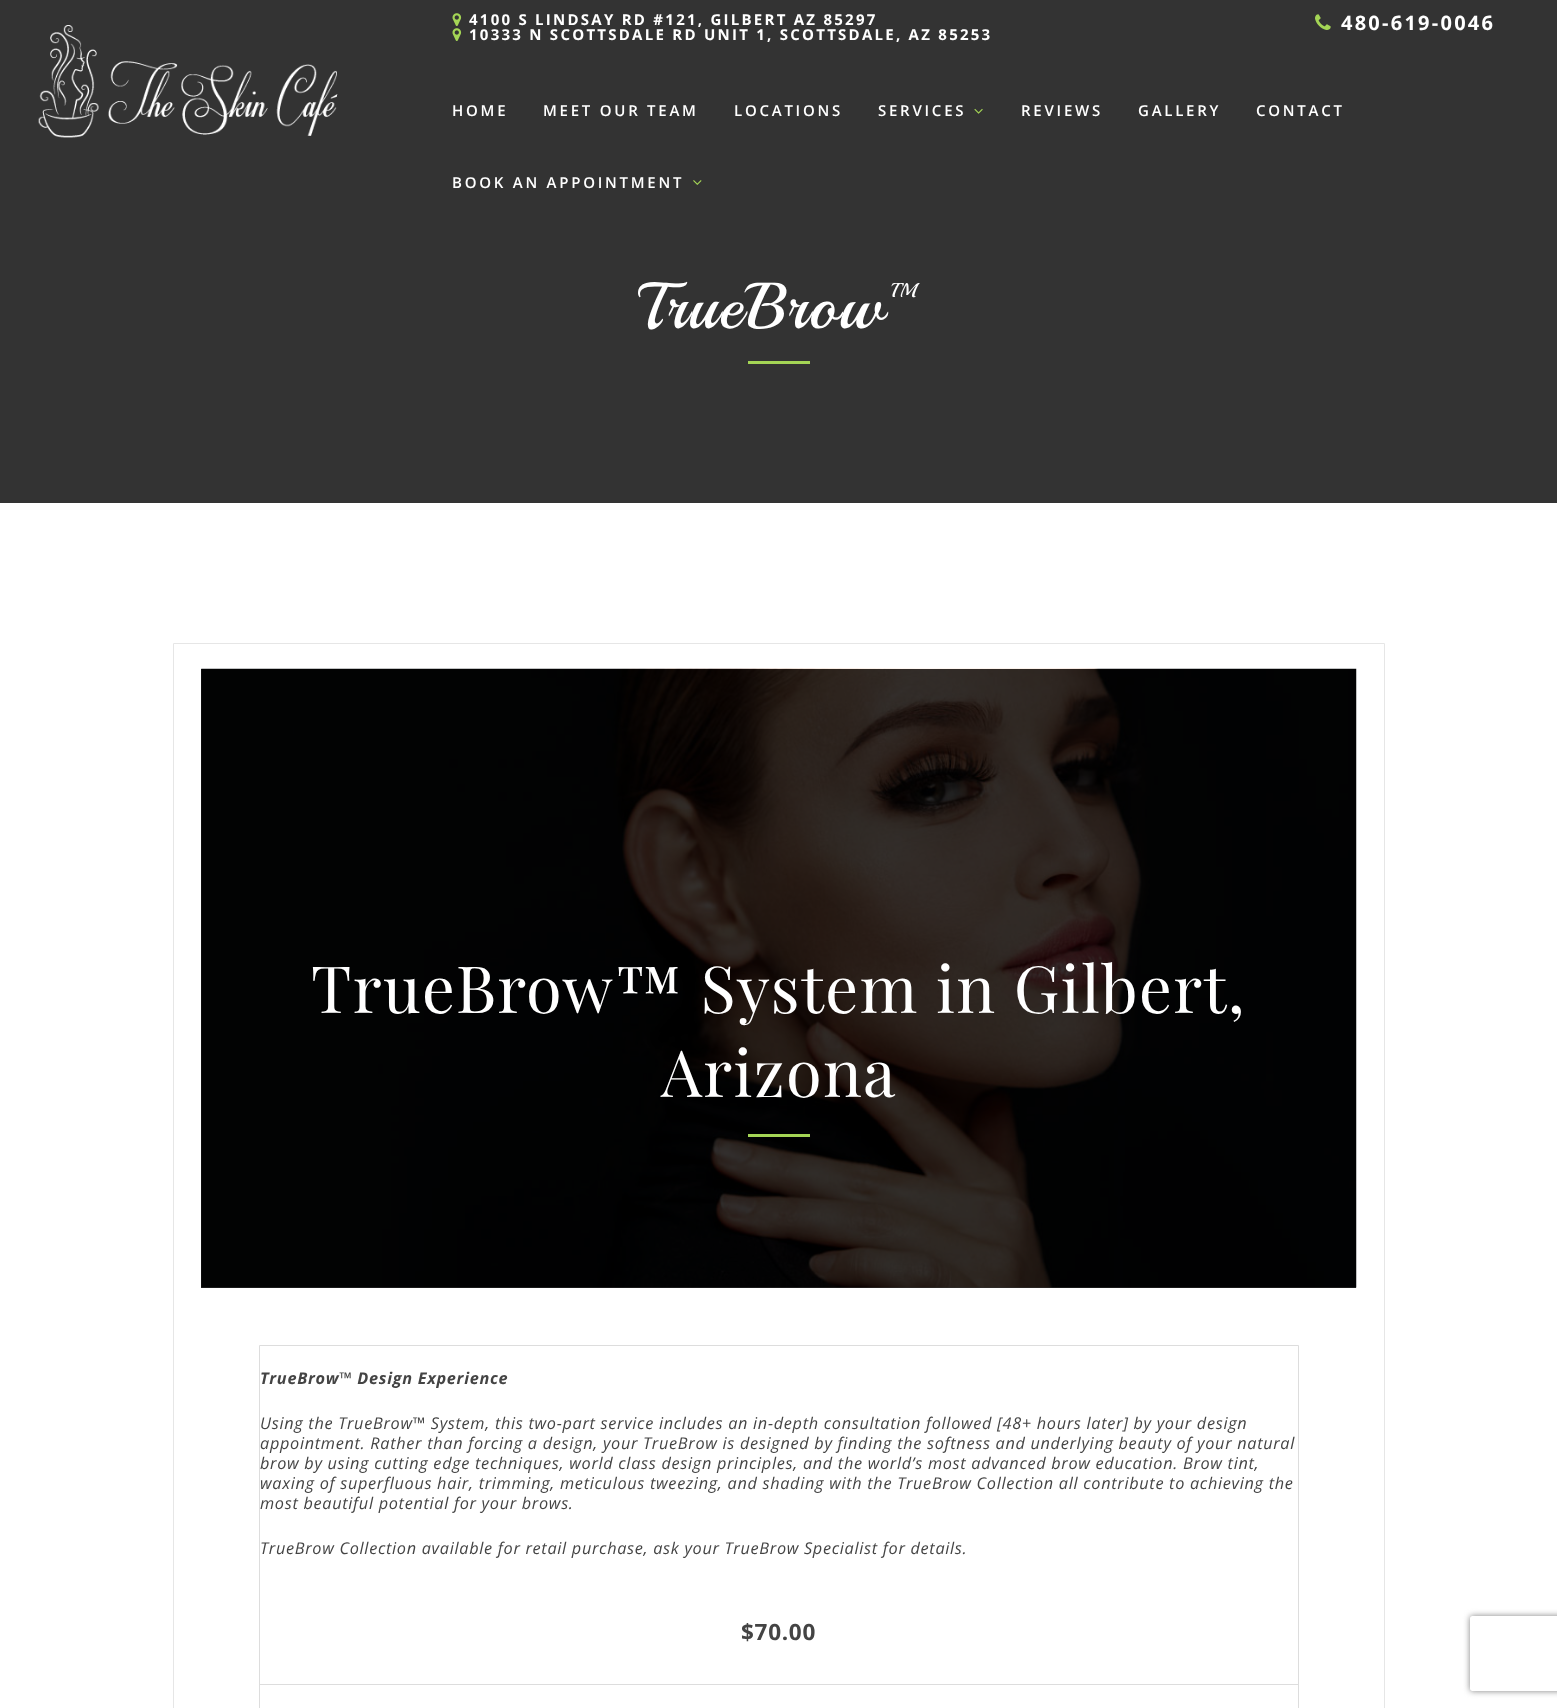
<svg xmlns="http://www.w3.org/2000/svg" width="1557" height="1708">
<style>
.a{font:bold 15px Open Sans;letter-spacing:2.25px;fill:#fff}
.b{font:bold 20px Open Sans;letter-spacing:2.25px;fill:#fff}
.c{font:600 15px Open Sans;letter-spacing:2.75px;fill:#fff}
.d{font:65px Playball;letter-spacing:1.3px;fill:#fff}
.e{font:65px Playfair Display;letter-spacing:1.3px;fill:#fff}
.f{font:italic bold 16.25px Open Sans;letter-spacing:0.7px;fill:#444}
.g{font:italic 16.25px Open Sans;letter-spacing:0.7px;fill:#444}
.h{font:bold 22.5px Open Sans;letter-spacing:0.7px;fill:#444}
</style>
<defs>
<clipPath id="clip1"><path d="M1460 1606h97v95h-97zm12.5 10h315c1.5 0 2.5 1 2.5 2.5v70c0 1.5-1 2.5-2.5 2.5h-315c-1.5 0-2.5-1-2.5-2.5v-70c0-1.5 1-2.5 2.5-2.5z" clip-rule="evenodd"/></clipPath>
</defs>
<rect width="100%" height="100%" fill="#fff"/>
<path fill="#333" d="M201 669h1155v619H201z"/>
<path fill="#333" d="M0 0h1557v503H0z"/>
<image href="1.png" x="38" y="25" width="300" height="113"/>
<image href="2.png" x="452" y="13" width="10" height="13"/>
<image href="2.png" x="452" y="28" width="10" height="13"/>
<image href="3.png" x="1315" y="14" width="16" height="16"/>
<image href="4.png" x="974" y="108" width="9" height="6"/>
<image href="5.png" x="693" y="180" width="9" height="5"/>
<path fill="#a4d555" d="M748 361h62v3H748z"/>
<path fill="none" stroke="#e6e6e6" d="M173.5 643.5h1211v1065H173.5z"/>
<image href="6.png" x="201" y="668" width="1156" height="620"/>
<path fill="#a4d555" d="M748 1134h62v3H748z"/>
<path fill="none" stroke="#ddd" d="M259.5 1345.5h1039v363H259.5z"/>
<path fill="#ddd" d="M260 1684h1038v1H260z"/>
<g clip-path="url(#clip1)">
<rect fill="#808080" filter="blur(3px)" x="1470" y="1616" width="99" height="75" rx="2.5"/>
</g>
<text class="a" x="469" y="25">4100 S LINDSAY RD #121, GILBERT AZ 85297</text>
<text class="a" x="469" y="40">10333 N SCOTTSDALE RD UNIT 1, SCOTTSDALE, AZ 85253</text>
<text class="b" x="1341" y="30">480-619-0046</text>
<text class="c" x="452" y="116">HOME</text>
<text class="c" x="543" y="116">MEET OUR TEAM</text>
<text class="c" x="734" y="116">LOCATIONS</text>
<text class="c" x="878" y="116">SERVICES</text>
<text class="c" x="1021" y="116">REVIEWS</text>
<text class="c" x="1138" y="116">GALLERY</text>
<text class="c" x="1256" y="116">CONTACT</text>
<text class="c" x="452" y="188">BOOK AN APPOINTMENT</text>
<text class="d" x="638" y="328">TrueBrow™</text>
<text class="e" x="311" y="1013">TrueBrow™ System in Gilbert,</text>
<text class="e" x="661" y="1097">Arizona</text>
<text class="f" x="260" y="1384">TrueBrow™ Design Experience</text>
<text class="g" x="260" y="1429">Using the TrueBrow™ System, this two-part service includes an in-depth consultation followed [48+ hours later] by your design</text>
<text class="g" x="260" y="1449">appointment. Rather than forcing a design, your TrueBrow is designed by finding the softness and underlying beauty of your natural</text>
<text class="g" x="260" y="1469">brow by using cutting edge techniques, world class design principles, and the world’s most advanced brow education. Brow tint,</text>
<text class="g" x="260" y="1489">waxing of superfluous hair, trimming, meticulous tweezing, and shading with the TrueBrow Collection all contribute to achieving the</text>
<text class="g" x="260" y="1509">most beautiful potential for your brows.</text>
<text class="g" x="260" y="1554">TrueBrow Collection available for retail purchase, ask your TrueBrow Specialist for details.</text>
<text class="h" x="741" y="1640">$70.00</text>
</svg>
